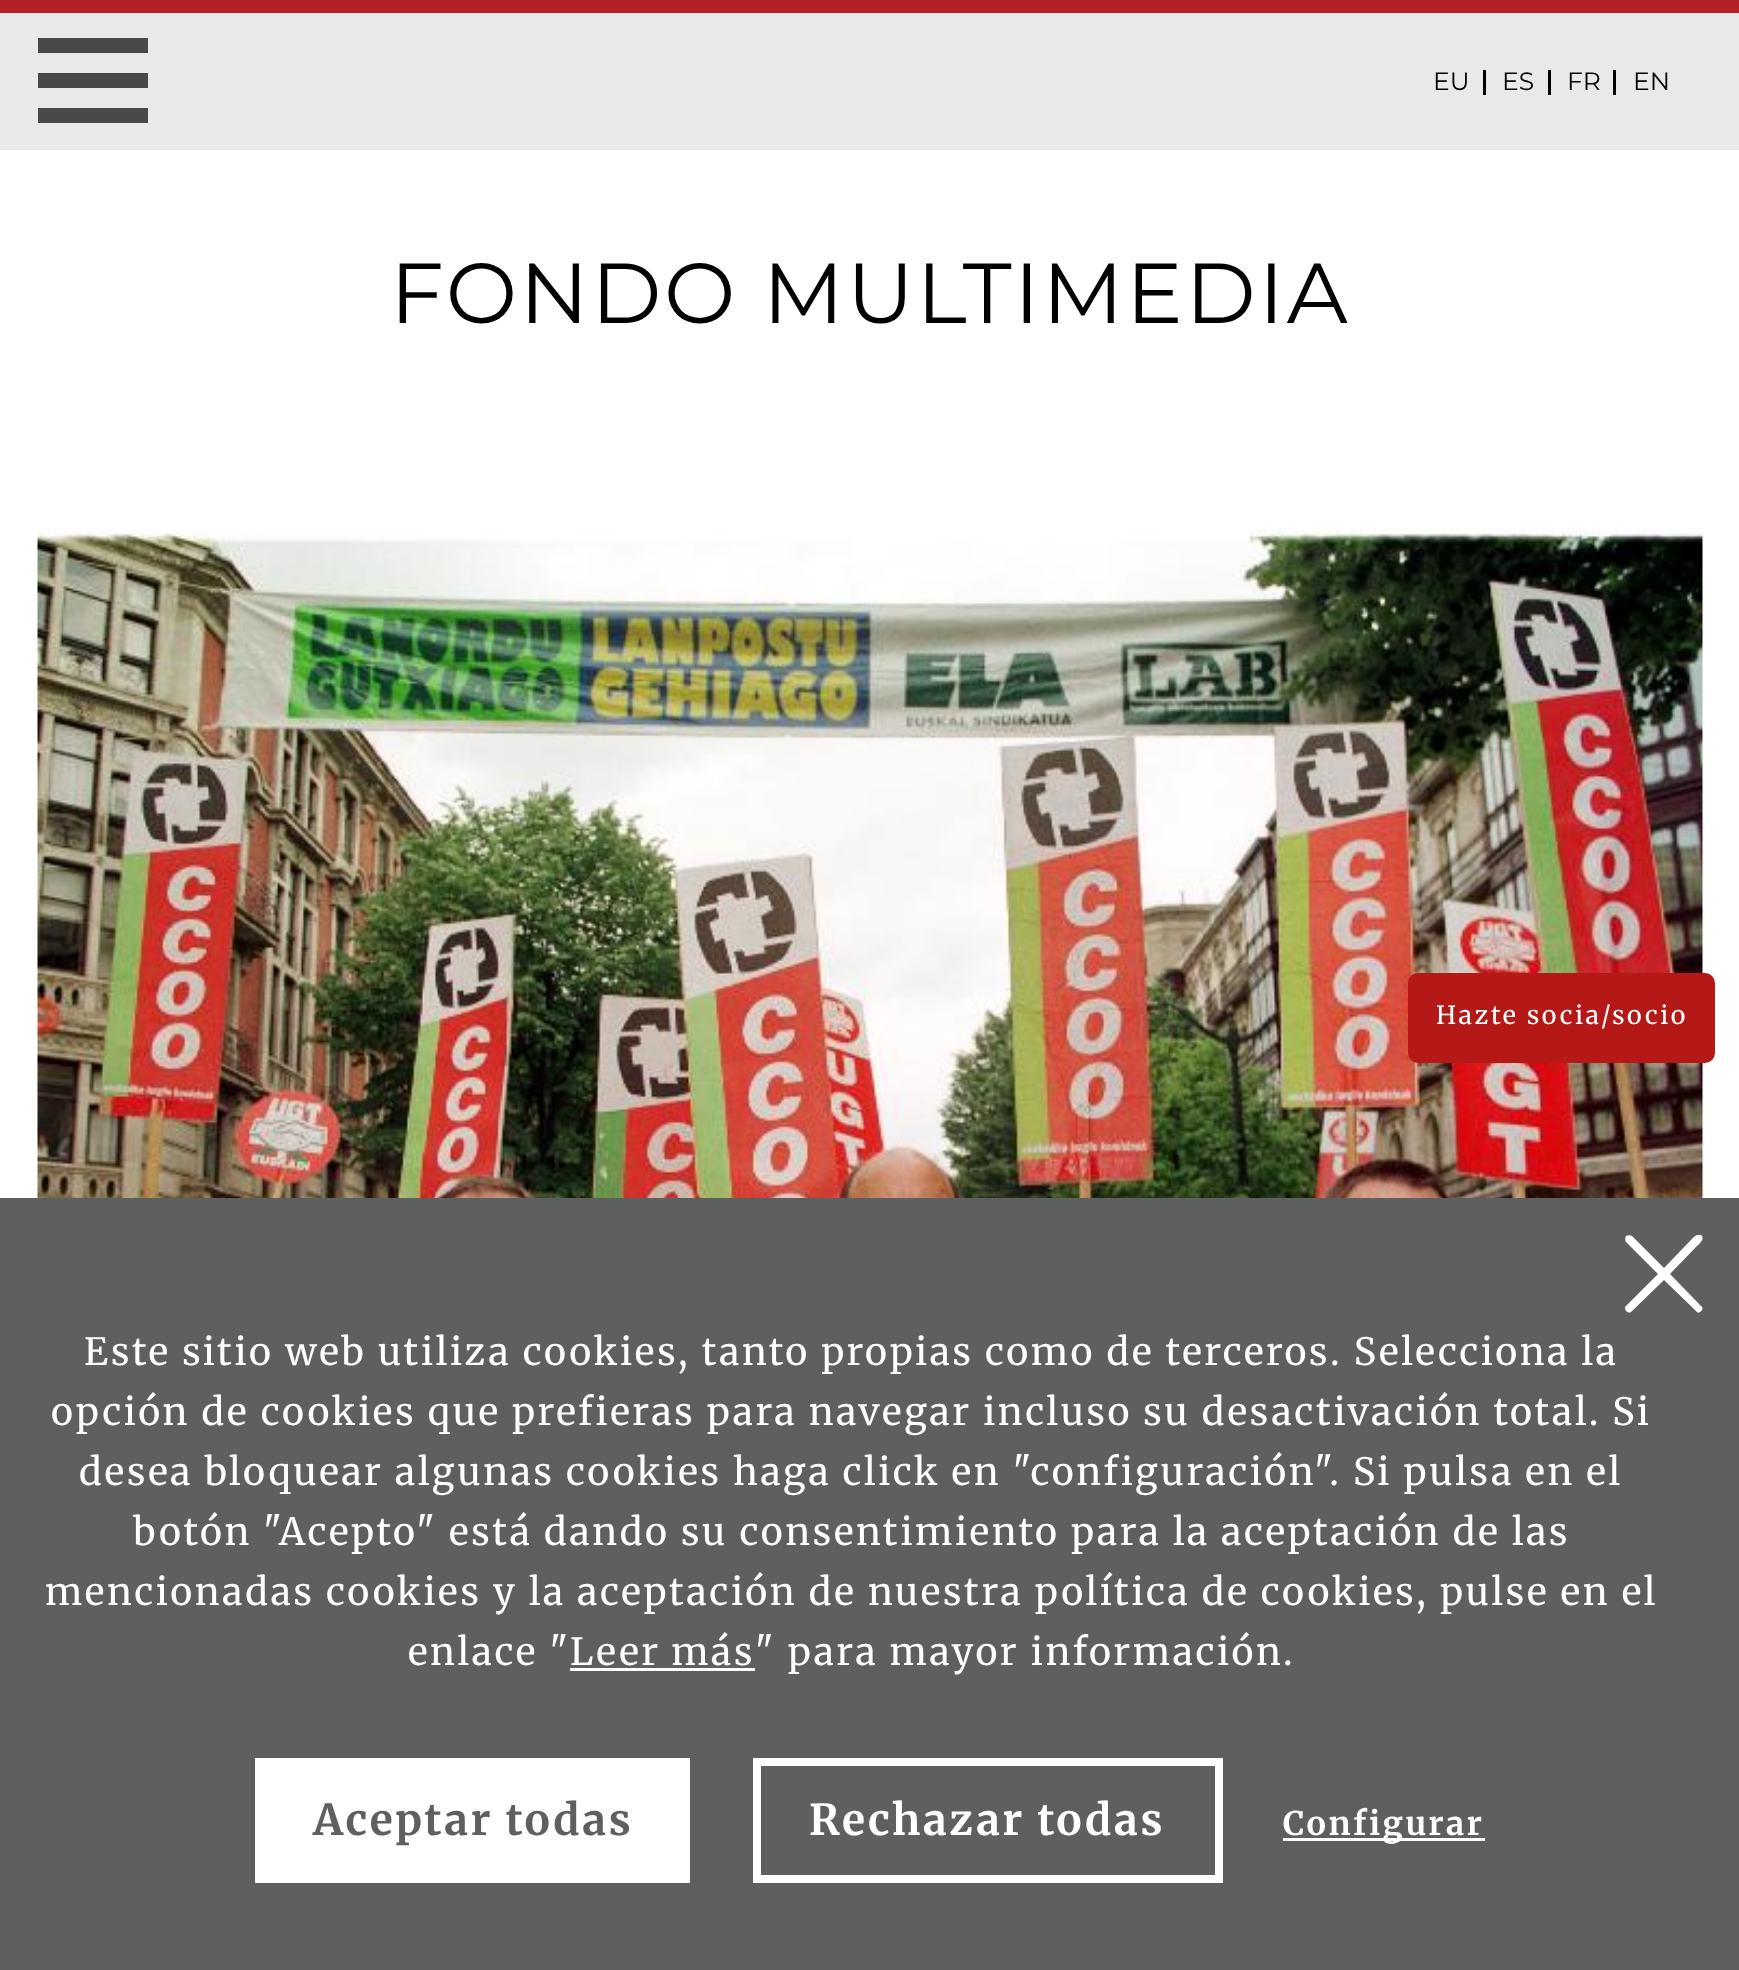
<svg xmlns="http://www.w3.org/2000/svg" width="1739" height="1970">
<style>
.a{font:25px Montserrat;fill:#000}
.b{font:85px Montserrat;letter-spacing:2.6px;fill:#000}
.c{font:25px Merriweather;letter-spacing:2.6px;fill:#fff}
.d{font:37.5px Merriweather;letter-spacing:2.6px;fill:#fff}
.e{font:bold 42.5px Merriweather;letter-spacing:2.6px;fill:#5e5f5f}
.f{font:bold 42.5px Merriweather;letter-spacing:2.6px;fill:#fff}
.g{font:bold 32.5px Merriweather;letter-spacing:2.6px;fill:#fff}
</style>
<defs>
<clipPath id="clip1"><path d="M1625 1235h78v78H1625z"/></clipPath>
</defs>
<rect width="100%" height="100%" fill="#fff"/>
<path fill="#e9e9e9" d="M0 13h1739v137H0z"/>
<path fill="#494849" d="M38 38h110v15H38z"/>
<path fill="#494849" d="M38 73h110v15H38z"/>
<path fill="#494849" d="M38 108h110v15H38z"/>
<path fill="#b52025" d="M0 0h1739v13H0z"/>
<path fill="#000" d="M1483 70h3v25H1483z"/>
<path fill="#000" d="M1548 70h3v25H1548z"/>
<path fill="#000" d="M1613 70h3v25H1613z"/>
<image href="1.png" x="37" y="530" width="1666" height="668"/>
<rect fill="#b51917" x="1408" y="973" width="307" height="90" rx="10"/>
<path fill="#5e5f5f" d="M0 1198h1739v772H0z"/>
<g clip-path="url(#clip1)">
<path fill="#fff" fill-rule="evenodd" d="M1670 1274l26-27c2-2 10-8 5-12c-5-2-9 4-11 6l-26 27l-32-32c-2-1-4-1-6 0c-1 2-1 4 0 6l32 32l-33 33c-1 3 3 7 6 5l33-32l32 31c1 2 4 2 5 0c2-1 2-4 0-5z"/>
</g>
<path fill="#fff" d="M570 1668h185v3H570z"/>
<path fill="#fff" d="M255 1758h435v125H255z"/>
<path fill="none" stroke="#fff" stroke-width="8" d="M757 1762h462v117H757z"/>
<path fill="#fff" d="M1283 1838h202v3H1283z"/>
<text class="a" x="1433" y="90">EU</text>
<text class="a" x="1502" y="90">ES</text>
<text class="a" x="1567" y="90">FR</text>
<text class="a" x="1633" y="90">EN</text>
<text class="b" x="390" y="323">FONDO MULTIMEDIA</text>
<text class="c" x="1436" y="1024">Hazte socia/socio</text>
<text class="d" x="84" y="1365">Este sitio web utiliza cookies, tanto propias como de terceros. Selecciona la</text>
<text class="d" x="51" y="1425">opción de cookies que prefieras para navegar incluso su desactivación total. Si</text>
<text class="d" x="79" y="1485">desea bloquear algunas cookies haga click en "configuración". Si pulsa en el</text>
<text class="d" x="133" y="1545">botón "Acepto" está dando su consentimiento para la aceptación de las</text>
<text class="d" x="45" y="1605">mencionadas cookies y la aceptación de nuestra política de cookies, pulse en el</text>
<text class="d" x="408" y="1665">enlace "</text>
<text class="d" x="570" y="1665" word-spacing="-1">Leer más</text>
<text class="d" x="755" y="1665">" para mayor información.</text>
<text class="e" x="313" y="1835">Aceptar todas</text>
<text class="f" x="809" y="1835">Rechazar todas</text>
<text class="g" x="1283" y="1835">Configurar</text>
</svg>
